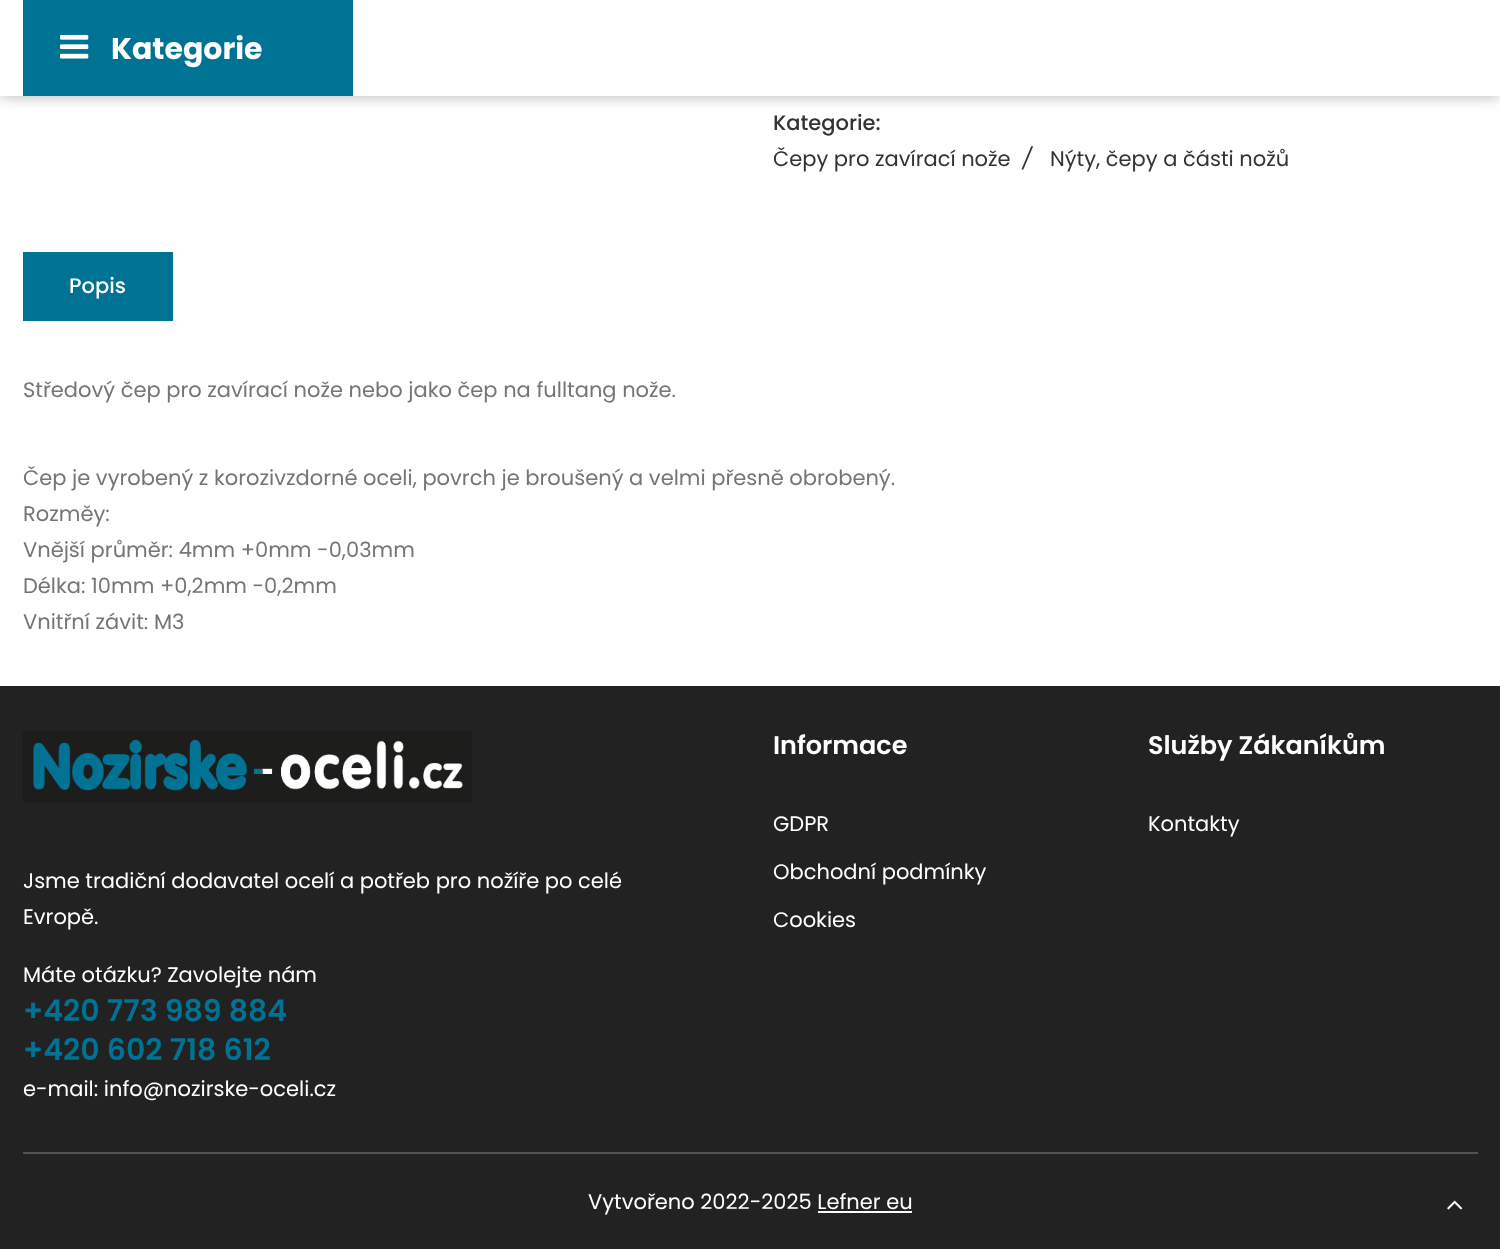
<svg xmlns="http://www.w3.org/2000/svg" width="1500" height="1249">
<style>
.a{font:bold 30px Poppins;fill:#fff}
.b{font:500 21px Poppins;fill:#333}
.c{font:21px Poppins;fill:#333}
.d{font:italic 21px Poppins;fill:#333}
.e{font:500 21px Poppins;fill:#fff}
.f{font:21px Poppins;fill:#757575}
.g{font:600 25.5px Poppins;fill:#fff}
.h{font:21px Poppins;fill:#fff}
.i{font:600 30px Poppins;fill:#007293}
</style>
<rect width="100%" height="100%" fill="#fff"/>
<path fill="#0000004d" filter="blur(7.5px)" d="M0 0h1500v96H0z"/>
<path fill="#fff" d="M0 0h1500v96H0z"/>
<path fill="#007293" d="M23 0h330v96H23z"/>
<image href="1.png" x="60" y="34" width="29" height="25"/>
<path fill="#007293" d="M23 252h150v69H23z"/>
<path fill="#222" d="M0 686h1500v563H0z"/>
<image href="2.png" x="22" y="731" width="450" height="72"/>
<path fill="#535353" d="M23 1152h1455v2H23z"/>
<path fill="#fff" d="M818 1211h94v2H818z"/>
<image href="3.png" x="1447" y="1200" width="16" height="10"/>
<text class="a" x="111" y="59">Kategorie</text>
<text class="b" x="773" y="130">Kategorie:</text>
<text class="c" x="773" y="166">Čepy pro zavírací nože</text>
<text class="d" x="1022" y="166">/</text>
<text class="c" x="1050" y="166">Nýty, čepy a části nožů</text>
<text class="e" x="69" y="293">Popis</text>
<text class="f" x="23" y="397">Středový čep pro zavírací nože nebo jako čep na fulltang nože.</text>
<text class="f" x="23" y="485">Čep je vyrobený z korozivzdorné oceli, povrch je broušený a velmi přesně obrobený.</text>
<text class="f" x="23" y="521">Rozměy:</text>
<text class="f" x="23" y="557">Vnější průměr: 4mm +0mm -0,03mm</text>
<text class="f" x="23" y="593">Délka: 10mm +0,2mm -0,2mm</text>
<text class="f" x="23" y="629">Vnitřní závit: M3</text>
<text class="g" x="773" y="754">Informace</text>
<text class="h" x="773" y="831">GDPR</text>
<text class="h" x="773" y="879">Obchodní podmínky</text>
<text class="h" x="773" y="927">Cookies</text>
<text class="g" x="1148" y="754">Služby Zákaníkům</text>
<text class="h" x="1148" y="831">Kontakty</text>
<text class="h" x="23" y="888">Jsme tradiční dodavatel ocelí a potřeb pro nožíře po celé</text>
<text class="h" x="23" y="924">Evropě.</text>
<text class="h" x="23" y="982">Máte otázku? Zavolejte nám</text>
<text class="i" x="23" y="1021">+420 773 989 884</text>
<text class="i" x="23" y="1060">+420 602 718 612</text>
<text class="h" x="23" y="1096">e-mail: info@nozirske-oceli.cz</text>
<text class="h" x="588" y="1209">Vytvořeno 2022-2025 Lefner eu</text>
</svg>
